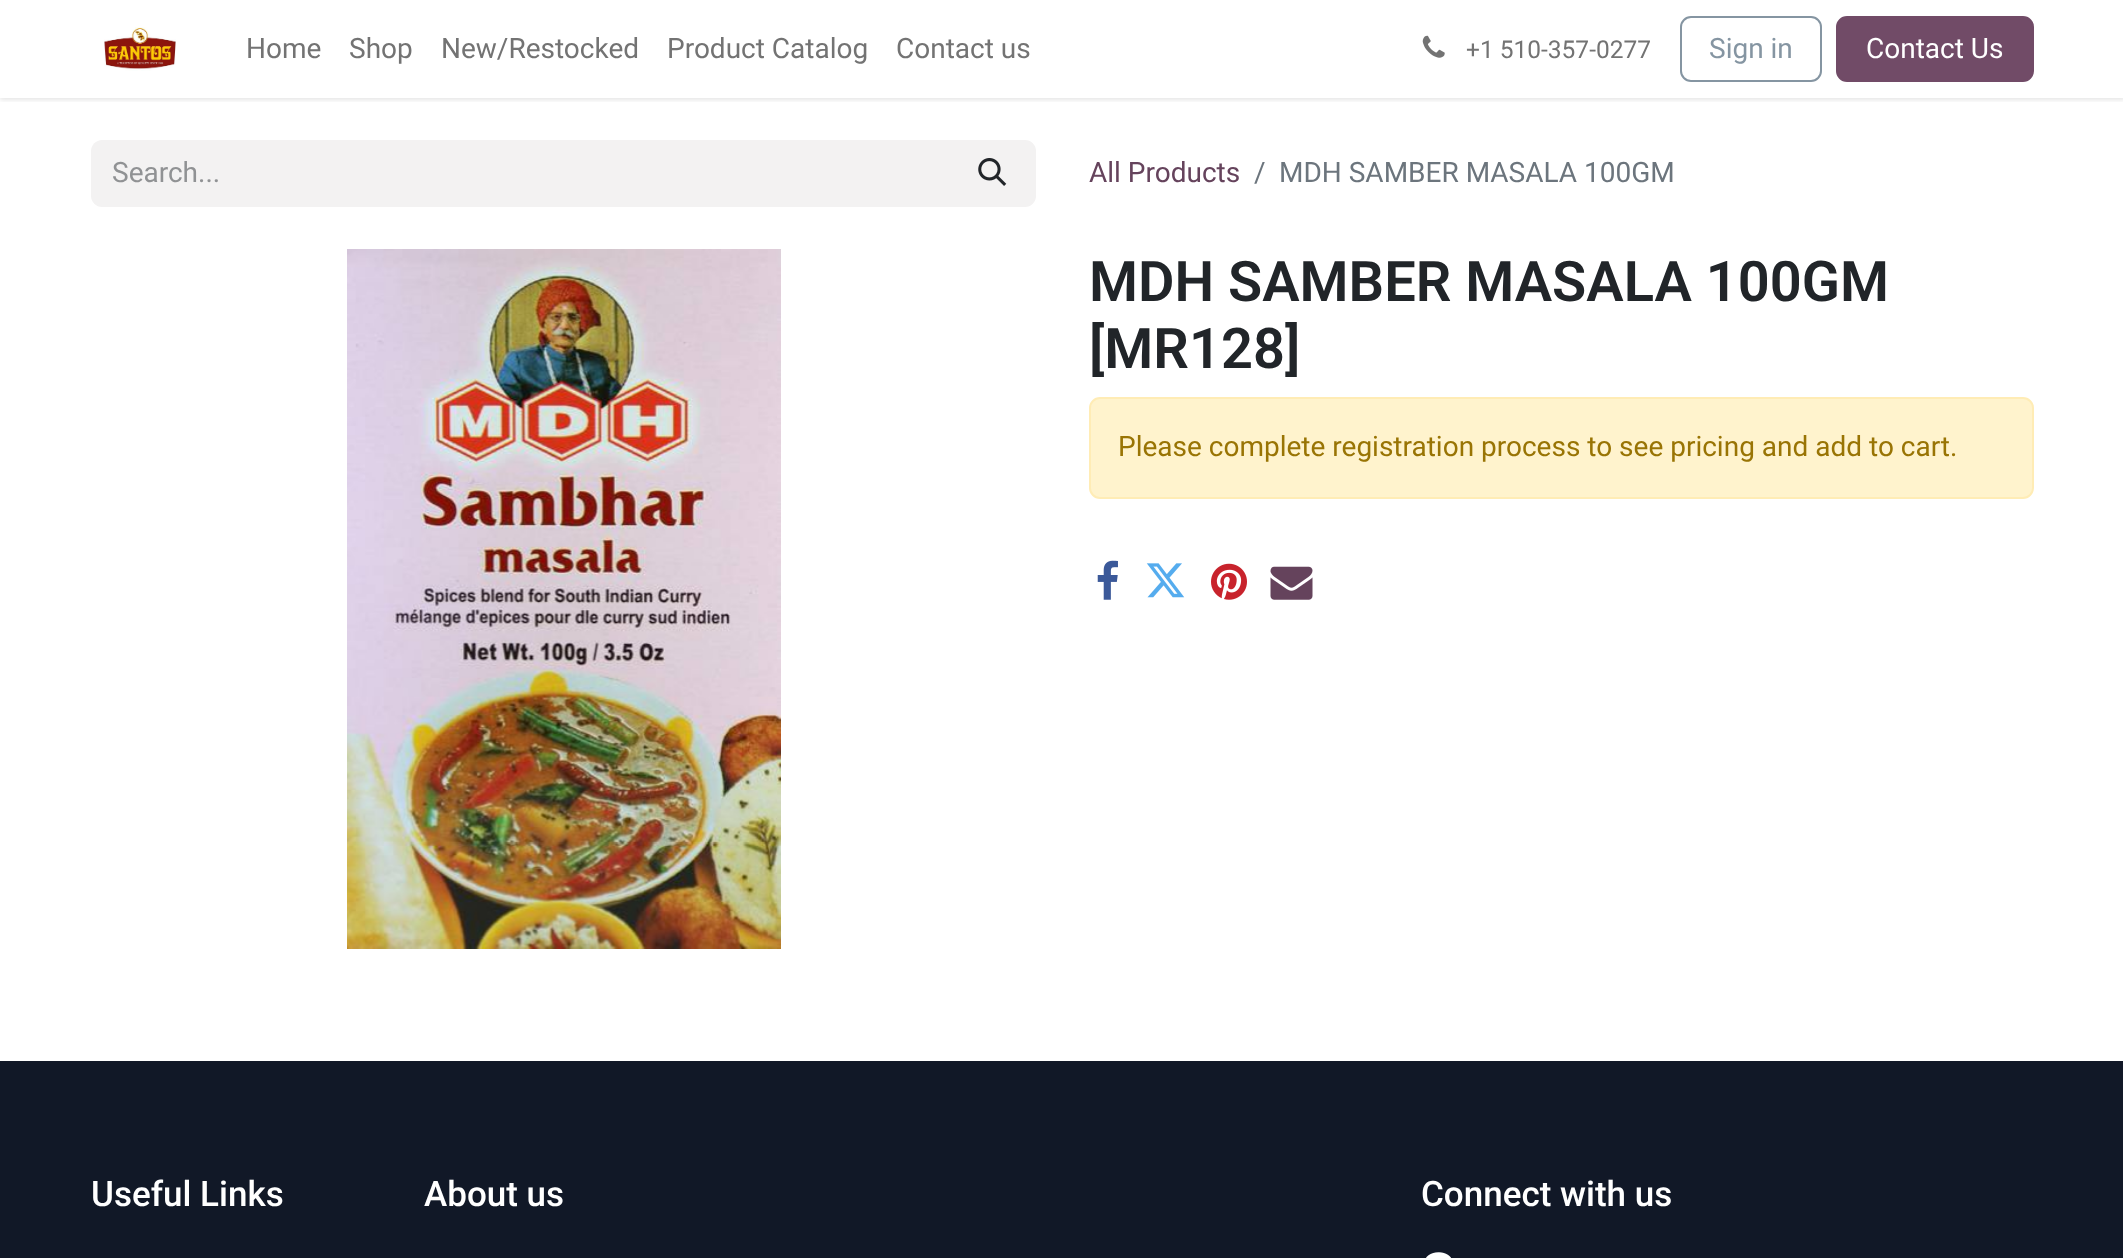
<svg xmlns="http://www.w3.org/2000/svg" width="2123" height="1258">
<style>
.a{font:28px Roboto;fill:#737373}
.b{font:24.5px Roboto;fill:#737373}
.c{font:28px Roboto;fill:#8595a2}
.d{font:28px Roboto;fill:#fff}
.e{font:28px Roboto;fill:#909294}
.f{font:28px Roboto;fill:#65435c}
.g{font:28px Roboto;fill:#6c757d}
.h{font:600 56px Roboto;fill:#212529}
.i{font:28px Roboto;fill:#997404}
.j{font:500 35px Roboto;fill:#fff}
</style>
<defs>
<clipPath id="clip1"><path d="M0 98h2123v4H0z"/></clipPath>
</defs>
<rect width="100%" height="100%" fill="#fff"/>
<g clip-path="url(#clip1)">
<path fill="#0000001a" filter="blur(2.5px)" d="M0 2h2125v98H0z"/>
</g>
<image href="1.png" x="104" y="27" width="72" height="44"/>
<image href="2.png" x="1422" y="35" width="23" height="23"/>
<rect fill="none" stroke="#8595a2" stroke-width="2" x="1681" y="17" width="140" height="64" rx="10"/>
<rect fill="#714b67" stroke="#714b67" stroke-width="2" x="1837" y="17" width="196" height="64" rx="10"/>
<path fill="#f3f2f2" d="M102 140h848v67h-848c-6 0-11-5-11-11v-45c0-6 5-11 11-11z"/>
<path fill="#f3f2f2" stroke="#f3f2f2" stroke-width="2" d="M950 141h75c5.5 0 10 4.5 10 10v45c0 5.5-4.5 10-10 10h-75z"/>
<image href="3.png" x="978" y="158" width="29" height="28"/>
<image href="4.png" x="347" y="249" width="434" height="700"/>
<rect fill="#fff3cd" stroke="#ffecb5" stroke-width="2" x="1090" y="398" width="943" height="100" rx="10"/>
<image href="5.png" x="1097" y="560" width="21" height="40"/>
<image href="6.png" x="1146" y="563" width="39" height="35"/>
<image href="7.png" x="1211" y="563" width="36" height="37"/>
<image href="8.png" x="1270" y="566" width="43" height="34"/>
<path fill="#111827" d="M0 1061h2123v197H0z"/>
<image href="9.png" x="1426" y="1252" width="25" height="6"/>
<text class="a" x="246" y="58">Home</text>
<text class="a" x="349" y="58">Shop</text>
<text class="a" x="441" y="58">New/Restocked</text>
<text class="a" x="667" y="58">Product Catalog</text>
<text class="a" x="896" y="58">Contact us</text>
<text class="b" x="1466" y="58">+1 510-357-0277</text>
<text class="c" x="1709" y="58">Sign in</text>
<text class="d" x="1866" y="58">Contact Us</text>
<text class="e" x="112" y="182">Search...</text>
<text class="f" x="1089" y="182">All Products</text>
<text class="g" x="1254" y="182">/</text>
<text class="g" x="1279" y="182">MDH SAMBER MASALA 100GM</text>
<text class="h" x="1089" y="301">MDH SAMBER MASALA 100GM</text>
<text class="h" x="1089" y="368">[MR128]</text>
<text class="i" x="1118" y="456">Please complete registration process to see pricing and add to cart.</text>
<text class="j" x="91" y="1206">Useful Links</text>
<text class="j" x="424" y="1206">About us</text>
<text class="j" x="1421" y="1206">Connect with us</text>
</svg>
